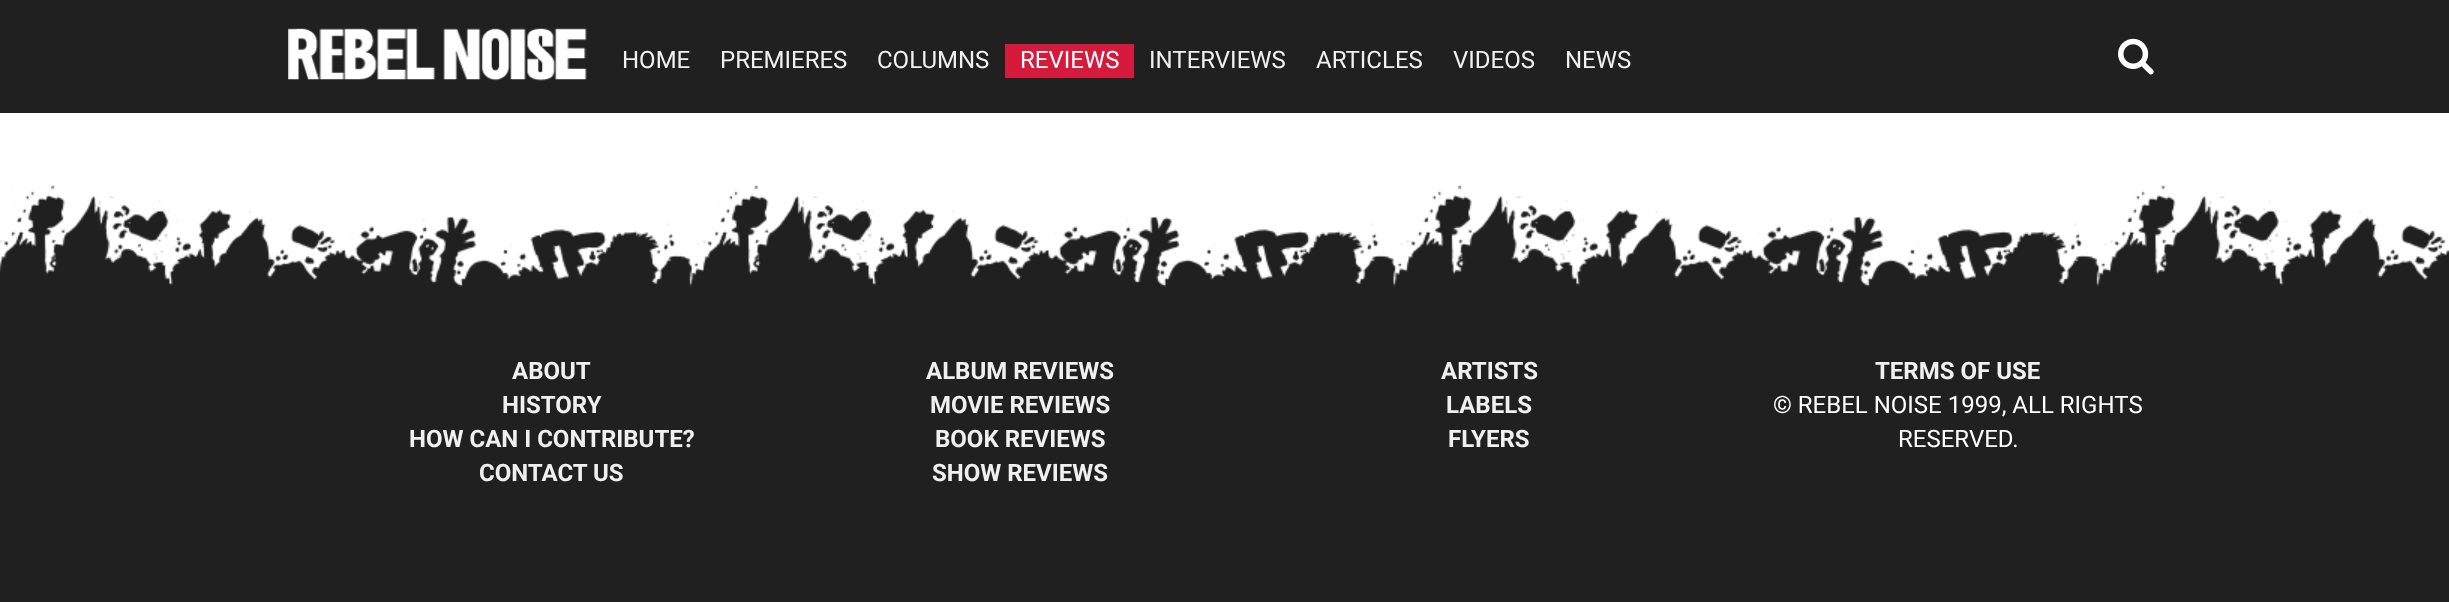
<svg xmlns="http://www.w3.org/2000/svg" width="2449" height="602">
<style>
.a{font:24px Roboto;fill:#f0f0f0}
.b{font:24px Roboto;fill:#fff}
.c{font:bold 24px Roboto;fill:#f0f0f0}
</style>
<rect width="100%" height="100%" fill="#fff"/>
<path fill="#202020" d="M0 0h2449v113H0z"/>
<image href="1.png" x="288" y="28" width="299" height="53"/>
<path fill="#d61a3c" d="M1005 44h129v34H1005z"/>
<image href="2.png" x="2118" y="38" width="36" height="37"/>
<path fill="#202020" d="M0 287h2449v315H0z"/>
<image href="3.png" x="0" y="155" width="2449" height="132"/>
<text class="a" x="622" y="68">HOME</text>
<text class="a" x="720" y="68">PREMIERES</text>
<text class="a" x="877" y="68">COLUMNS</text>
<text class="b" x="1020" y="68">REVIEWS</text>
<text class="a" x="1149" y="68">INTERVIEWS</text>
<text class="a" x="1316" y="68">ARTICLES</text>
<text class="a" x="1453" y="68">VIDEOS</text>
<text class="a" x="1565" y="68">NEWS</text>
<text class="c" x="512" y="379">ABOUT</text>
<text class="c" x="502" y="413">HISTORY</text>
<text class="c" x="409" y="447">HOW CAN I CONTRIBUTE?</text>
<text class="c" x="479" y="481">CONTACT US</text>
<text class="c" x="926" y="379">ALBUM REVIEWS</text>
<text class="c" x="930" y="413">MOVIE REVIEWS</text>
<text class="c" x="935" y="447">BOOK REVIEWS</text>
<text class="c" x="932" y="481">SHOW REVIEWS</text>
<text class="c" x="1441" y="379">ARTISTS</text>
<text class="c" x="1446" y="413">LABELS</text>
<text class="c" x="1448" y="447">FLYERS</text>
<text class="c" x="1875" y="379">TERMS OF USE</text>
<text class="b" x="1773" y="413">© REBEL NOISE 1999, ALL RIGHTS</text>
<text class="b" x="1898" y="447">RESERVED.</text>
</svg>
